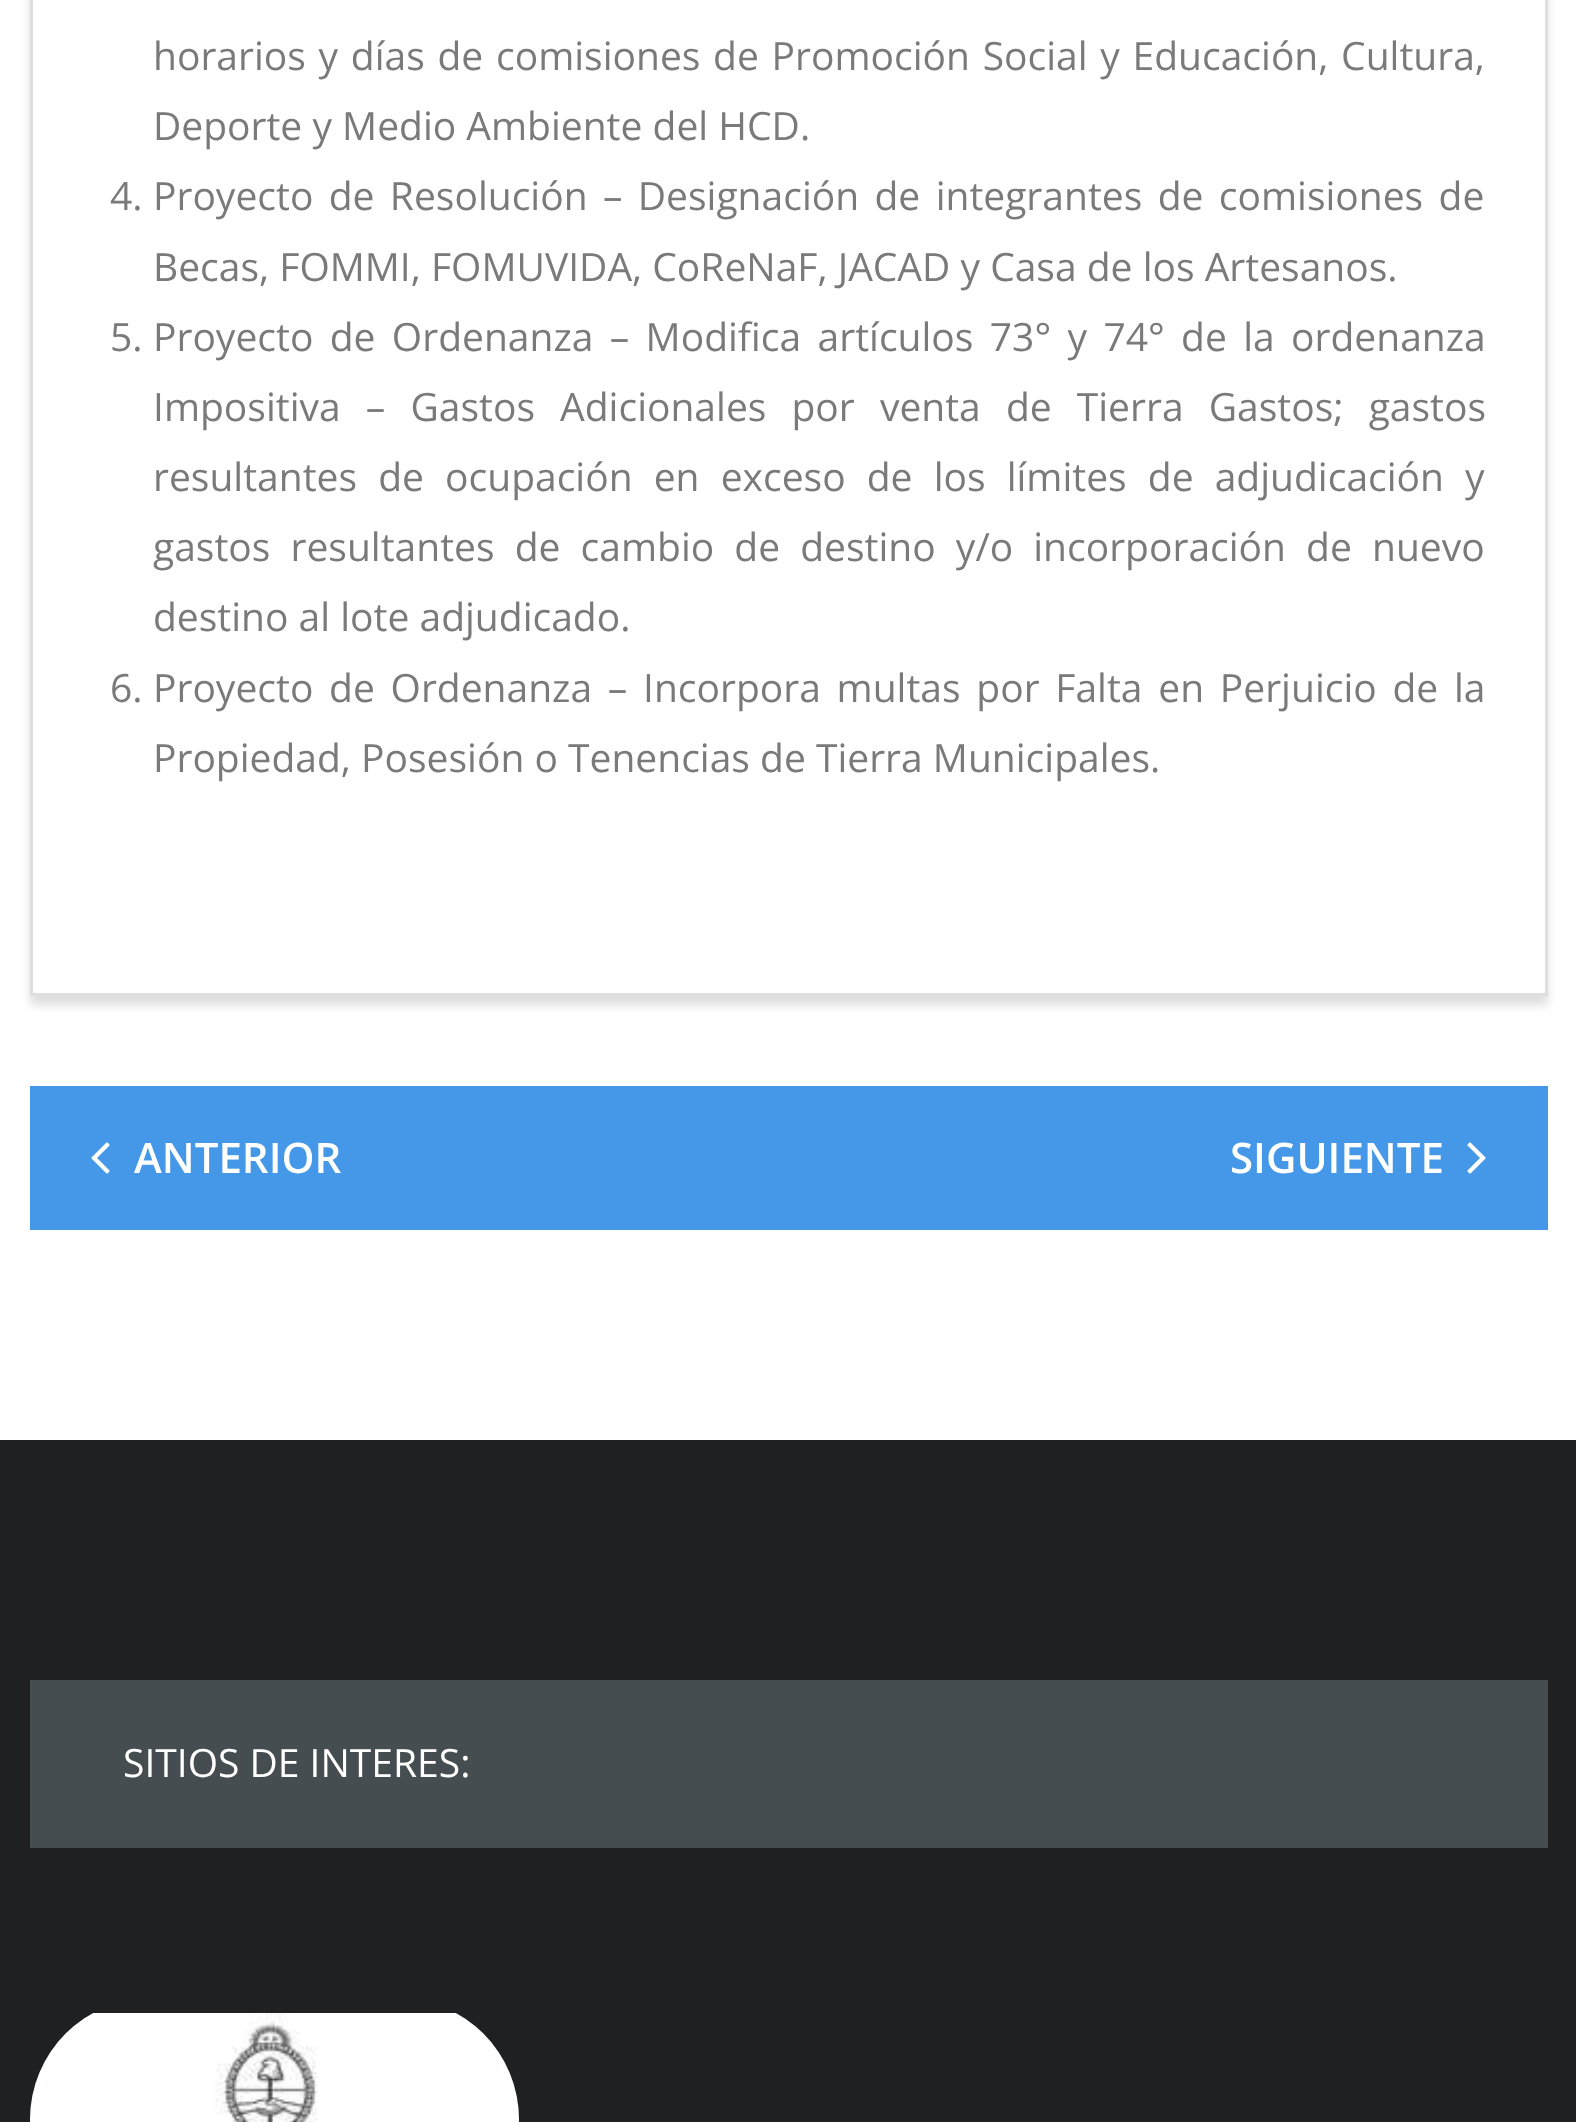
<svg xmlns="http://www.w3.org/2000/svg" width="1576" height="2122">
<style>
.a{font:39px Open Sans;fill:#7a7a7a}
.b{font:600 42px Open Sans;fill:#fff}
.c{font:39px Open Sans;fill:#fff}
</style>
<defs>
<clipPath id="clip1"><path d="M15 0h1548v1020h-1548zm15-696h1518v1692h-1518z" clip-rule="evenodd"/></clipPath>
</defs>
<rect width="100%" height="100%" fill="#fff"/>
<g clip-path="url(#clip1)">
<path fill="#23232326" filter="blur(4.5px)" d="M30 -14h1518v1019H30z"/>
</g>
<path fill="none" stroke="#dedede" stroke-width="3" d="M31.5 -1.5h1515v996H31.5z"/>
<path fill="#4498e7" d="M30 1086h1518v144H30z"/>
<image href="1.png" x="91" y="1142" width="19" height="32"/>
<image href="2.png" x="1467" y="1142" width="19" height="32"/>
<path fill="#1e2021" d="M0 1440h1576v682H0z"/>
<path fill="#454d51" d="M30 1680h1518v168H30z"/>
<image href="3.png" x="30" y="2013" width="489" height="109"/>
<text class="a" x="153" y="70" word-spacing="2.6">horarios y días de comisiones de Promoción Social y Educación, Cultura,</text>
<text class="a" x="153" y="140">Deporte y Medio Ambiente del HCD.</text>
<text class="a" x="110" y="210">4.</text>
<text class="a" x="153" y="210" word-spacing="5.25">Proyecto de Resolución – Designación de integrantes de comisiones de</text>
<text class="a" x="153" y="281">Becas, FOMMI, FOMUVIDA, CoReNaF, JACAD y Casa de los Artesanos.</text>
<text class="a" x="110" y="351">5.</text>
<text class="a" x="153" y="351" word-spacing="6.25">Proyecto de Ordenanza – Modifica artículos 73° y 74° de la ordenanza</text>
<text class="a" x="153" y="421" word-spacing="15">Impositiva – Gastos Adicionales por venta de Tierra Gastos; gastos</text>
<text class="a" x="153" y="491" word-spacing="11">resultantes de ocupación en exceso de los límites de adjudicación y</text>
<text class="a" x="153" y="561" word-spacing="10">gastos resultantes de cambio de destino y/o incorporación de nuevo</text>
<text class="a" x="153" y="631">destino al lote adjudicado.</text>
<text class="a" x="110" y="702">6.</text>
<text class="a" x="153" y="702" word-spacing="5.6">Proyecto de Ordenanza – Incorpora multas por Falta en Perjuicio de la</text>
<text class="a" x="153" y="772">Propiedad, Posesión o Tenencias de Tierra Municipales.</text>
<text class="b" x="134" y="1173">ANTERIOR</text>
<text class="b" x="1230" y="1173">SIGUIENTE</text>
<text class="c" x="123" y="1777">SITIOS DE INTERES:</text>
</svg>
